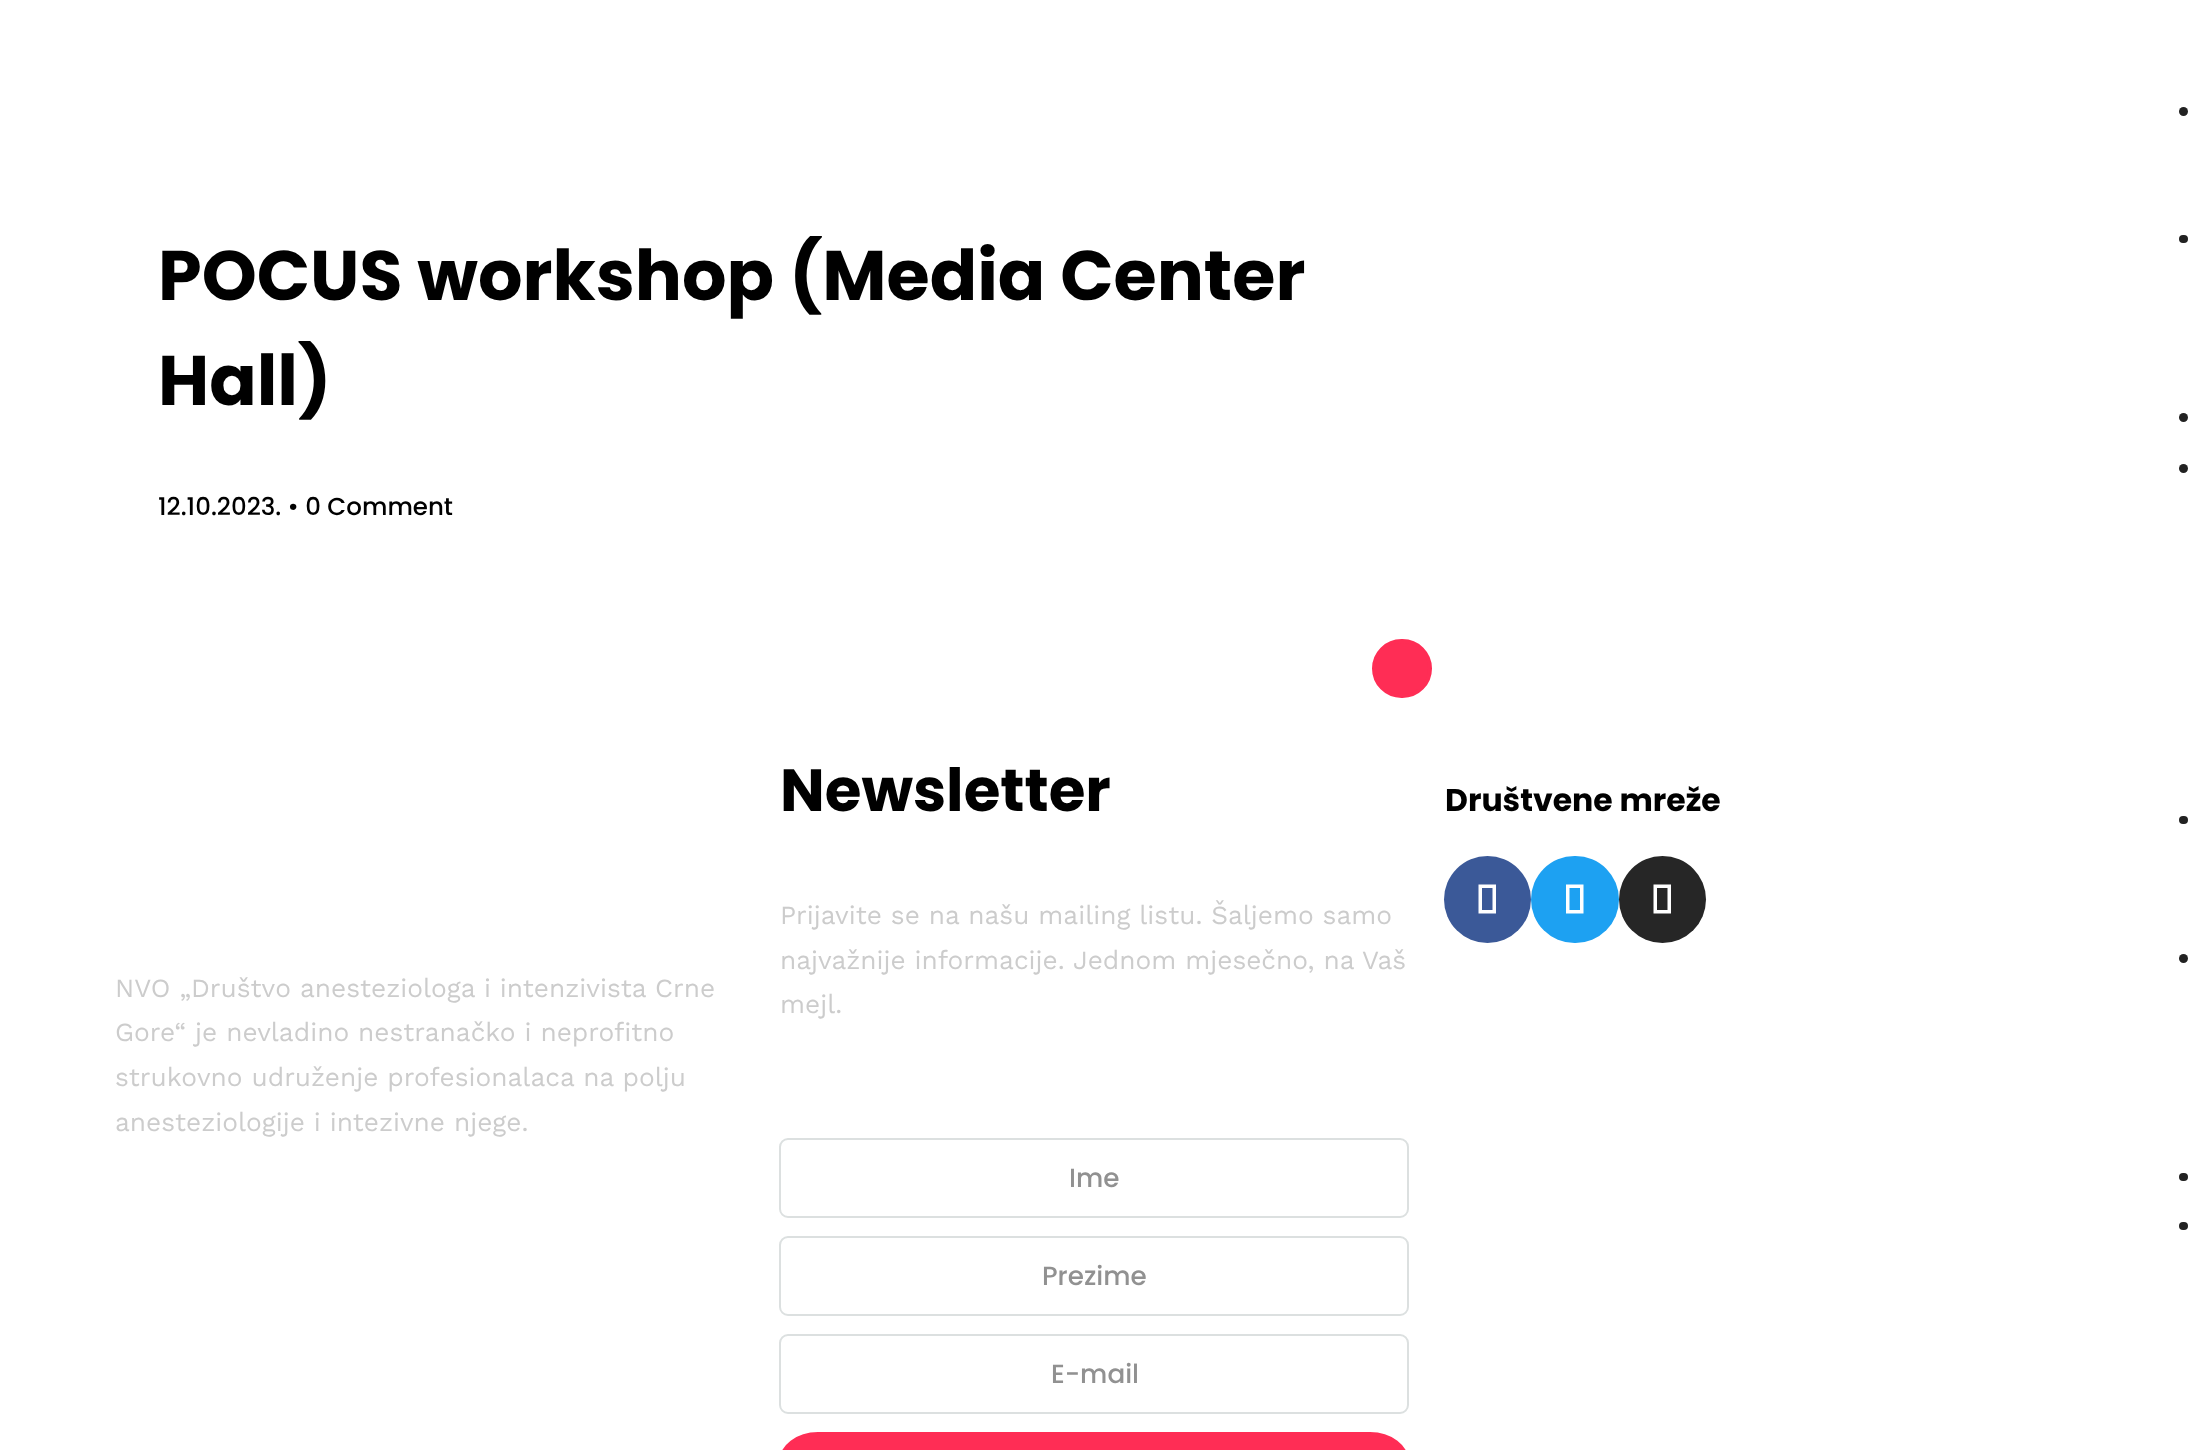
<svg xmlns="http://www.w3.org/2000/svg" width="2188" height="1450">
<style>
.a{font:bold 70px Poppins;fill:#000}
.b{font:500 24.5px Poppins;fill:#000}
.c{font:bold 59.5px Poppins;fill:#000}
.d{font:26.25px Work Sans;fill:#ccc}
.e{font:500 26.25px Poppins;fill:#919191}
.f{font:bold 31.5px Poppins;fill:#000}
</style>
<rect width="100%" height="100%" fill="#fff"/>
<rect fill="#ff2d55" stroke="#ff2d55" stroke-width="4" x="1374" y="641" width="56" height="55" rx="27.5"/>
<rect fill="none" stroke="#dce0e0" stroke-width="2" x="780" y="1139" width="628" height="78" rx="8"/>
<rect fill="none" stroke="#dce0e0" stroke-width="2" x="780" y="1237" width="628" height="78" rx="8"/>
<rect fill="none" stroke="#dce0e0" stroke-width="2" x="780" y="1335" width="628" height="78" rx="8"/>
<rect fill="#ff2d55" stroke="#ff2d55" stroke-width="4" x="781" y="1434" width="626" height="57" rx="37"/>
<circle fill="#3b5998" cx="1487.5" cy="899.5" r="43.5"/>
<path fill="#fff" d="M1482 910h10.5v-22h-10.5zm-3.5 3.5v-29h17.5v29z"/>
<rect fill="#1da1f2" x="1531" y="856" width="88" height="87" rx="43.5"/>
<path fill="#fff" d="M1569.5 910h10.5v-22h-10.5zm-3.5 3.5v-29h17.5v29z"/>
<circle fill="#262626" cx="1662.5" cy="899.5" r="43.5"/>
<path fill="#fff" d="M1657 910h10.5v-22h-10.5zm-3.5 3.5v-29h17.5v29z"/>
<circle fill="#222" cx="2183.5" cy="111.5" r="4.5"/>
<circle fill="#222" cx="2183.5" cy="468.5" r="4.5"/>
<circle fill="#222" cx="2183.5" cy="958.5" r="4.5"/>
<rect fill="#222" x="2179" y="1222" width="9" height="8" rx="4"/>
<rect fill="#222" x="2179" y="235" width="9" height="8" rx="4"/>
<circle fill="#222" cx="2183.5" cy="417.5" r="4.5"/>
<rect fill="#222" x="2179" y="816" width="9" height="8" rx="4"/>
<rect fill="#222" x="2179" y="1173" width="9" height="8" rx="4"/>
<text class="a" x="158" y="300">POCUS workshop (Media Center</text>
<text class="a" x="158" y="405">Hall)</text>
<text class="b" x="158" y="515">12.10.2023. • 0 Comment</text>
<text class="c" x="780" y="811">Newsletter</text>
<text class="d" x="780" y="924">Prijavite se na našu mailing listu. Šaljemo samo</text>
<text class="d" x="780" y="969">najvažnije informacije. Jednom mjesečno, na Vaš</text>
<text class="d" x="780" y="1013">mejl.</text>
<text class="e" x="1069" y="1187">Ime</text>
<text class="e" x="1042" y="1285">Prezime</text>
<text class="e" x="1051" y="1383">E-mail</text>
<text class="f" x="1445" y="811">Društvene mreže</text>
<text class="d" x="115" y="997">NVO „Društvo anesteziologa i intenzivista Crne</text>
<text class="d" x="115" y="1041">Gore“ je nevladino nestranačko i neprofitno</text>
<text class="d" x="115" y="1086">strukovno udruženje profesionalaca na polju</text>
<text class="d" x="115" y="1131">anesteziologije i intezivne njege.</text>
</svg>
